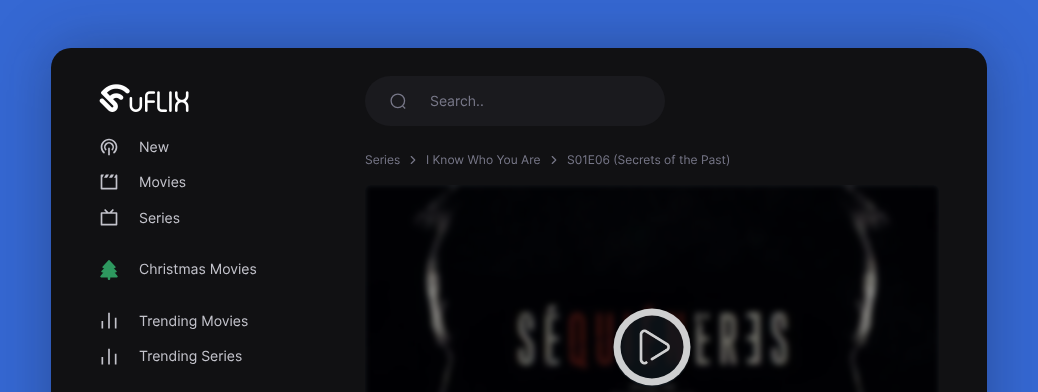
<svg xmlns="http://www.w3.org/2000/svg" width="1038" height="392">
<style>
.a{font:14px Inter;fill:#778}
.b{font:12px Inter;fill:#778}
.c{font:14px Inter;fill:#c3c3cb}
</style>
<rect width="100%" height="100%" fill="#3568d3"/>
<rect fill="#1111134d" filter="blur(30px)" x="51" y="48" width="936" height="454" rx="20"/>
<rect fill="#111113" x="51" y="48" width="936" height="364" rx="20"/>
<rect fill="#1a1a1e" x="365" y="76" width="300" height="50" rx="25"/>
<image href="1.png" x="390" y="93" width="16" height="16"/>
<image href="2.png" x="410" y="156" width="6" height="8"/>
<image href="2.png" x="551" y="156" width="6" height="8"/>
<image href="3.png" x="365" y="185" width="574" height="207"/>
<image href="4.png" x="99" y="84" width="90" height="28"/>
<image href="5.png" x="100" y="138" width="18" height="18"/>
<image href="6.png" x="100" y="174" width="18" height="16"/>
<image href="7.png" x="100" y="209" width="18" height="17"/>
<image href="8.png" x="100" y="260" width="18" height="20"/>
<image href="9.png" x="101" y="312" width="16" height="17"/>
<image href="9.png" x="101" y="348" width="16" height="17"/>
<text class="a" x="430" y="106">Search..</text>
<text class="b" x="365" y="164">Series</text>
<text class="b" x="426" y="164">I Know Who You Are</text>
<text class="b" x="567" y="164">S01E06 (Secrets of the Past)</text>
<text class="c" x="139" y="152">New</text>
<text class="c" x="139" y="187">Movies</text>
<text class="c" x="139" y="223">Series</text>
<text class="c" x="139" y="274">Christmas Movies</text>
<text class="c" x="139" y="326">Trending Movies</text>
<text class="c" x="139" y="361">Trending Series</text>
</svg>
